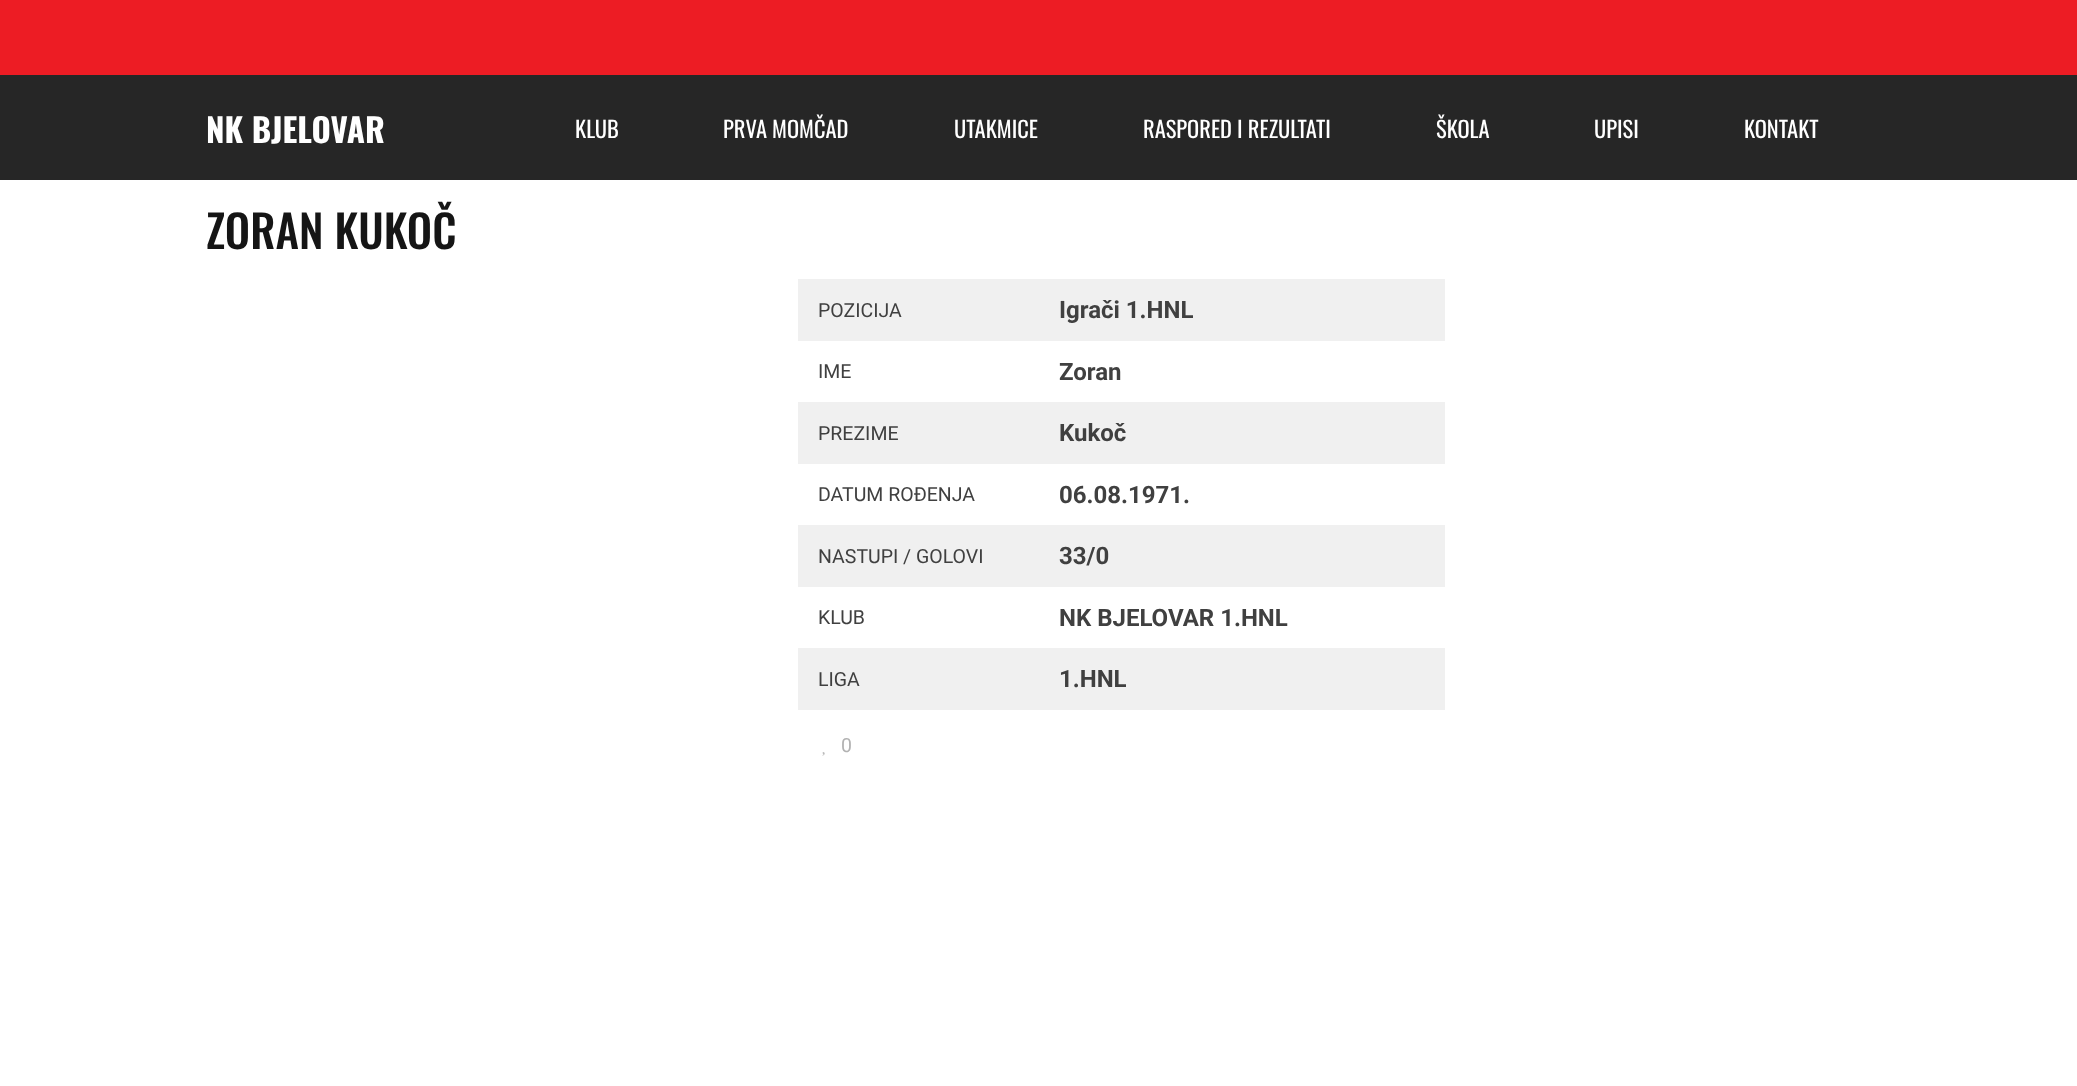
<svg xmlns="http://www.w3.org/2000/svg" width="2077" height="1086">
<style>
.a{font:bold 33px Oswald;fill:#fff}
.b{font:22.5px Oswald;fill:#fff}
.c{font:500 45px Oswald;fill:#151515}
.d{font:19.5px Roboto;fill:#404040}
.e{font:bold 24px Roboto;fill:#404040}
.f{font:19.5px Roboto;fill:#b2b2b2}
</style>
<rect width="100%" height="100%" fill="#fff"/>
<path fill="#ed1c24" d="M0 0h2077v75H0z"/>
<path fill="#262626" d="M0 75h2077v105H0z"/>
<path fill="#f0f0f0" d="M798 279h647v62H798z"/>
<path fill="#f0f0f0" d="M798 402h647v62H798z"/>
<path fill="#f0f0f0" d="M798 525h647v62H798z"/>
<path fill="#f0f0f0" d="M798 648h647v62H798z"/>
<image href="1.png" x="822" y="752" width="3" height="4"/>
<text class="a" x="206" y="143">NK BJELOVAR</text>
<text class="b" x="575" y="138">KLUB</text>
<text class="b" x="723" y="138">PRVA MOMČAD</text>
<text class="b" x="954" y="138">UTAKMICE</text>
<text class="b" x="1143" y="138">RASPORED I REZULTATI</text>
<text class="b" x="1436" y="138">ŠKOLA</text>
<text class="b" x="1594" y="138">UPISI</text>
<text class="b" x="1744" y="138">KONTAKT</text>
<text class="c" x="206" y="249">ZORAN KUKOČ</text>
<text class="d" x="818" y="317">POZICIJA</text>
<text class="e" x="1059" y="318">Igrači 1.HNL</text>
<text class="d" x="818" y="378">IME</text>
<text class="e" x="1059" y="380">Zoran</text>
<text class="d" x="818" y="440">PREZIME</text>
<text class="e" x="1059" y="441">Kukoč</text>
<text class="d" x="818" y="501">DATUM ROĐENJA</text>
<text class="e" x="1059" y="503">06.08.1971.</text>
<text class="d" x="818" y="563">NASTUPI / GOLOVI</text>
<text class="e" x="1059" y="564">33/0</text>
<text class="d" x="818" y="624">KLUB</text>
<text class="e" x="1059" y="626">NK BJELOVAR 1.HNL</text>
<text class="d" x="818" y="686">LIGA</text>
<text class="e" x="1059" y="687">1.HNL</text>
<text class="f" x="841" y="752">0</text>
</svg>
